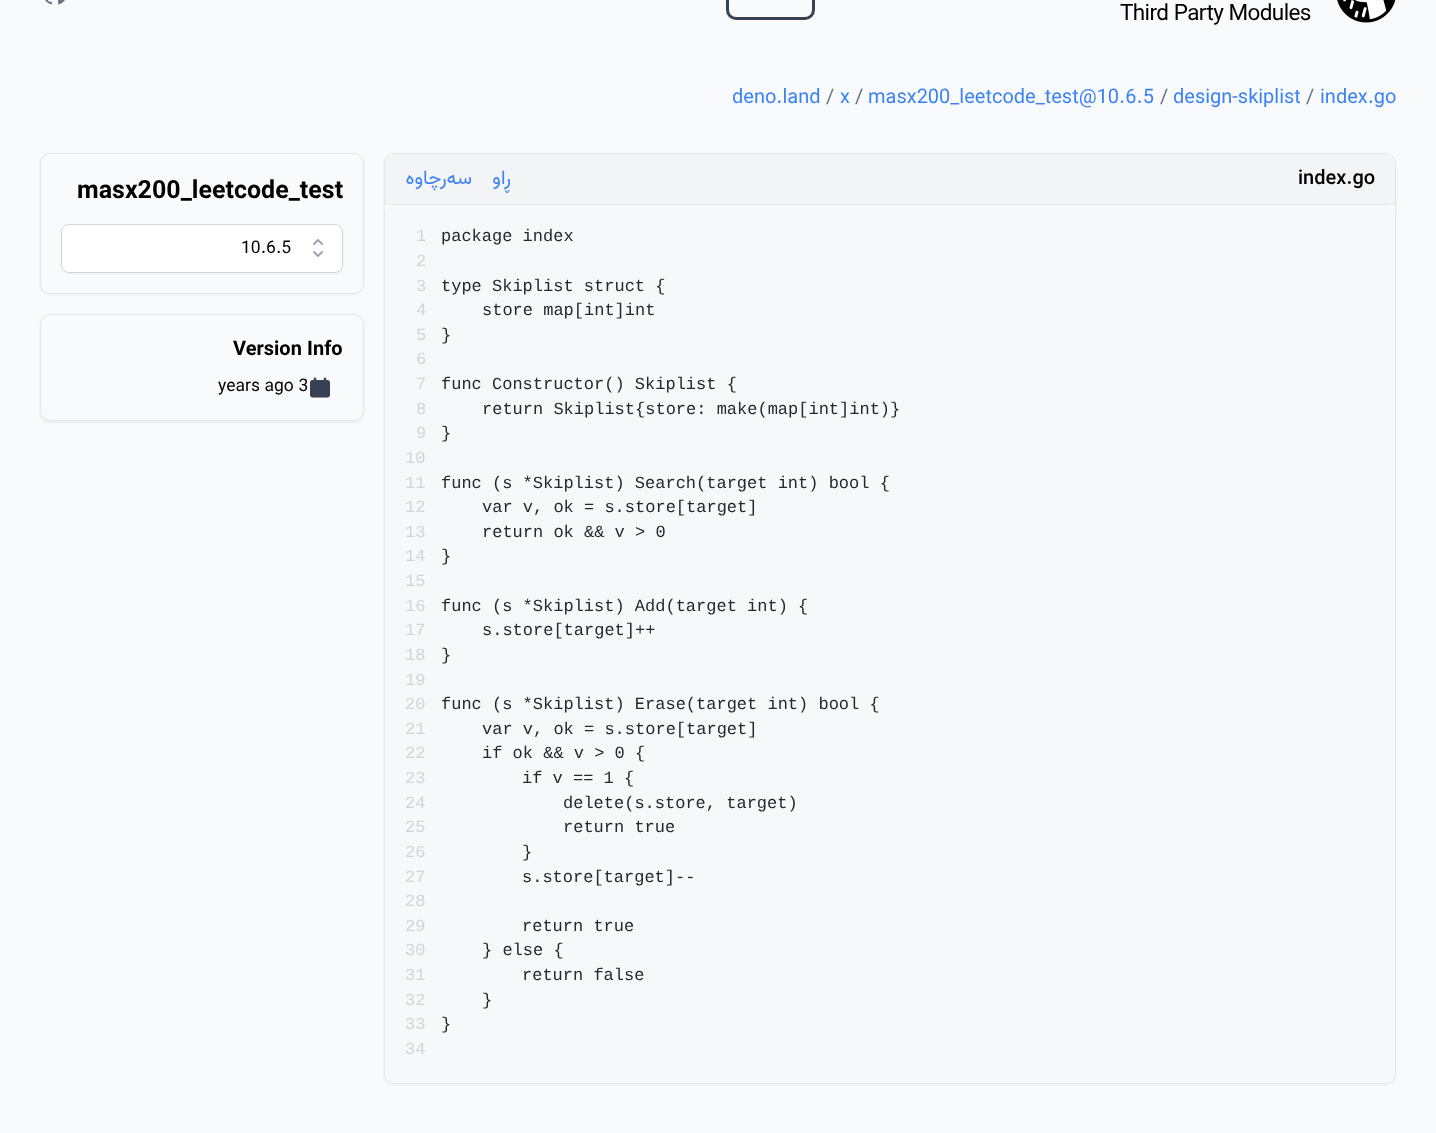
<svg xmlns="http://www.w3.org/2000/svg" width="1436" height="1133">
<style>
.a{font:22.5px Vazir;letter-spacing:-0.6px;fill:#000}
.b{font:20px Vazir;fill:#3b82f6}
.c{font:20px Vazir;fill:#6b7280}
.d{font:bold 25px Vazir;fill:#000}
.e{font:17.5px Vazir;fill:#000}
.f{font:bold 20px Vazir;fill:#000}
.g{font:20px Vazir;direction:rtl;fill:#3b82f6}
.h{font:500 20px Vazir;fill:#000}
.i{font:17px Liberation Mono;fill:#d1d5db}
.j{font:17px Liberation Mono;fill:#24292f}
</style>
<defs>
<clipPath id="clip1"><path d="M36 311h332v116h-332zm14 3h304c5.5 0 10 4.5 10 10v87c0 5.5-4.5 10-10 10h-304c-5.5 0-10-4.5-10-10v-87c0-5.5 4.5-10 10-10z" clip-rule="evenodd"/></clipPath>
</defs>
<rect width="100%" height="100%" fill="#f9fafb"/>
<image href="1.png" x="45" y="0" width="20" height="5"/>
<rect fill="none" stroke="#374151" stroke-width="3" x="727.5" y="-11.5" width="86" height="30" rx="8.5"/>
<image href="2.png" x="1337" y="0" width="59" height="23"/>
<rect fill="#0000000d" filter="blur(1px)" x="40" y="154" width="324" height="141" rx="10"/>
<rect fill="none" stroke="#e5e7eb" x="40.5" y="153.5" width="323" height="140" rx="9.5"/>
<rect fill="#f9fafb" x="41" y="154" width="322" height="139" rx="9"/>
<rect fill="#0000000d" filter="blur(1px)" x="61" y="225" width="282" height="49" rx="8"/>
<rect fill="#fff" x="61" y="224" width="282" height="49" rx="8"/>
<path fill="none" stroke="#9fa6b2" stroke-width="2" stroke-linecap="round" stroke-linejoin="round" d="M314 244l4-4l4 4m0 8l-4 4l-4-4"/>
<rect fill="none" stroke="#d2d6dc" x="61.5" y="224.5" width="281" height="48" rx="7.5"/>
<g clip-path="url(#clip1)">
<rect fill="#0000000d" filter="blur(1px)" x="40" y="315" width="324" height="108" rx="10"/>
</g>
<rect fill="none" stroke="#e5e7eb" x="40.5" y="314.5" width="323" height="106" rx="9.5"/>
<image href="3.png" x="310" y="377" width="20" height="21"/>
<rect fill="#0000000d" filter="blur(1px)" x="384" y="154" width="1012" height="931" rx="10"/>
<rect fill="none" stroke="#e5e7eb" x="384.5" y="153.5" width="1011" height="930" rx="9.5"/>
<path fill="#f3f4f6" d="M394 154h992c5 0 9 4 9 9v41h-1010v-41c0-5 4-9 9-9z"/>
<path fill="#e5e7eb" d="M385 204h1010v1H385z"/>
<path fill="#fff" d="M385 205h1010v869c0 5-4 9-9 9h-992c-5 0-9-4-9-9z"/>
<path fill="#f6f8fa" d="M393 205h994c4.5 0 8 3.5 8 8v861c0 5-4 9-9 9h-992c-5 0-9-4-9-9v-861c0-4.5 3.5-8 8-8z"/>
<text class="a" x="1120" y="20">Third Party Modules</text>
<text class="b" x="732" y="103">deno.land</text>
<text class="c" x="826" y="103">/</text>
<text class="b" x="840" y="103">x</text>
<text class="c" x="855" y="103">/</text>
<text class="b" x="868" y="103">masx200_leetcode_test@10.6.5</text>
<text class="c" x="1160" y="103">/</text>
<text class="b" x="1173" y="103">design-skiplist</text>
<text class="c" x="1306" y="103">/</text>
<text class="b" x="1320" y="103">index.go</text>
<text class="d" x="77" y="198">masx200_leetcode_test</text>
<text class="e" x="241" y="253">10.6.5</text>
<text class="f" x="233" y="355">Version Info</text>
<text class="e" x="218" y="391">years ago 3</text>
<text class="g" x="472" y="184">سەرچاوە</text>
<text class="g" x="511" y="184">ڕاو</text>
<text class="h" x="1298" y="184">index.go</text>
<text class="i" x="416" y="241">1</text>
<text class="i" x="416" y="266">2</text>
<text class="i" x="416" y="291">3</text>
<text class="i" x="416" y="315">4</text>
<text class="i" x="416" y="340">5</text>
<text class="i" x="416" y="364">6</text>
<text class="i" x="416" y="389">7</text>
<text class="i" x="416" y="414">8</text>
<text class="i" x="416" y="438">9</text>
<text class="i" x="405" y="463">10</text>
<text class="i" x="405" y="488">11</text>
<text class="i" x="405" y="512">12</text>
<text class="i" x="405" y="537">13</text>
<text class="i" x="405" y="561">14</text>
<text class="i" x="405" y="586">15</text>
<text class="i" x="405" y="611">16</text>
<text class="i" x="405" y="635">17</text>
<text class="i" x="405" y="660">18</text>
<text class="i" x="405" y="685">19</text>
<text class="i" x="405" y="709">20</text>
<text class="i" x="405" y="734">21</text>
<text class="i" x="405" y="758">22</text>
<text class="i" x="405" y="783">23</text>
<text class="i" x="405" y="808">24</text>
<text class="i" x="405" y="832">25</text>
<text class="i" x="405" y="857">26</text>
<text class="i" x="405" y="882">27</text>
<text class="i" x="405" y="906">28</text>
<text class="i" x="405" y="931">29</text>
<text class="i" x="405" y="955">30</text>
<text class="i" x="405" y="980">31</text>
<text class="i" x="405" y="1005">32</text>
<text class="i" x="405" y="1029">33</text>
<text class="i" x="405" y="1054">34</text>
<text class="j" x="441" y="241">package index</text>
<text class="j" x="441" y="291">type Skiplist struct {</text>
<text class="j" x="482" y="315">store map[int]int</text>
<text class="j" x="441" y="340">}</text>
<text class="j" x="441" y="389">func Constructor() Skiplist {</text>
<text class="j" x="482" y="414">return Skiplist{store: make(map[int]int)}</text>
<text class="j" x="441" y="438">}</text>
<text class="j" x="441" y="488">func (s *Skiplist) Search(target int) bool {</text>
<text class="j" x="482" y="512">var v, ok = s.store[target]</text>
<text class="j" x="482" y="537">return ok &amp;&amp; v &gt; 0</text>
<text class="j" x="441" y="561">}</text>
<text class="j" x="441" y="611">func (s *Skiplist) Add(target int) {</text>
<text class="j" x="482" y="635">s.store[target]++</text>
<text class="j" x="441" y="660">}</text>
<text class="j" x="441" y="709">func (s *Skiplist) Erase(target int) bool {</text>
<text class="j" x="482" y="734">var v, ok = s.store[target]</text>
<text class="j" x="482" y="758">if ok &amp;&amp; v &gt; 0 {</text>
<text class="j" x="522" y="783">if v == 1 {</text>
<text class="j" x="563" y="808">delete(s.store, target)</text>
<text class="j" x="563" y="832">return true</text>
<text class="j" x="522" y="857">}</text>
<text class="j" x="522" y="882">s.store[target]--</text>
<text class="j" x="522" y="931">return true</text>
<text class="j" x="482" y="955">} else {</text>
<text class="j" x="522" y="980">return false</text>
<text class="j" x="482" y="1005">}</text>
<text class="j" x="441" y="1029">}</text>
</svg>
